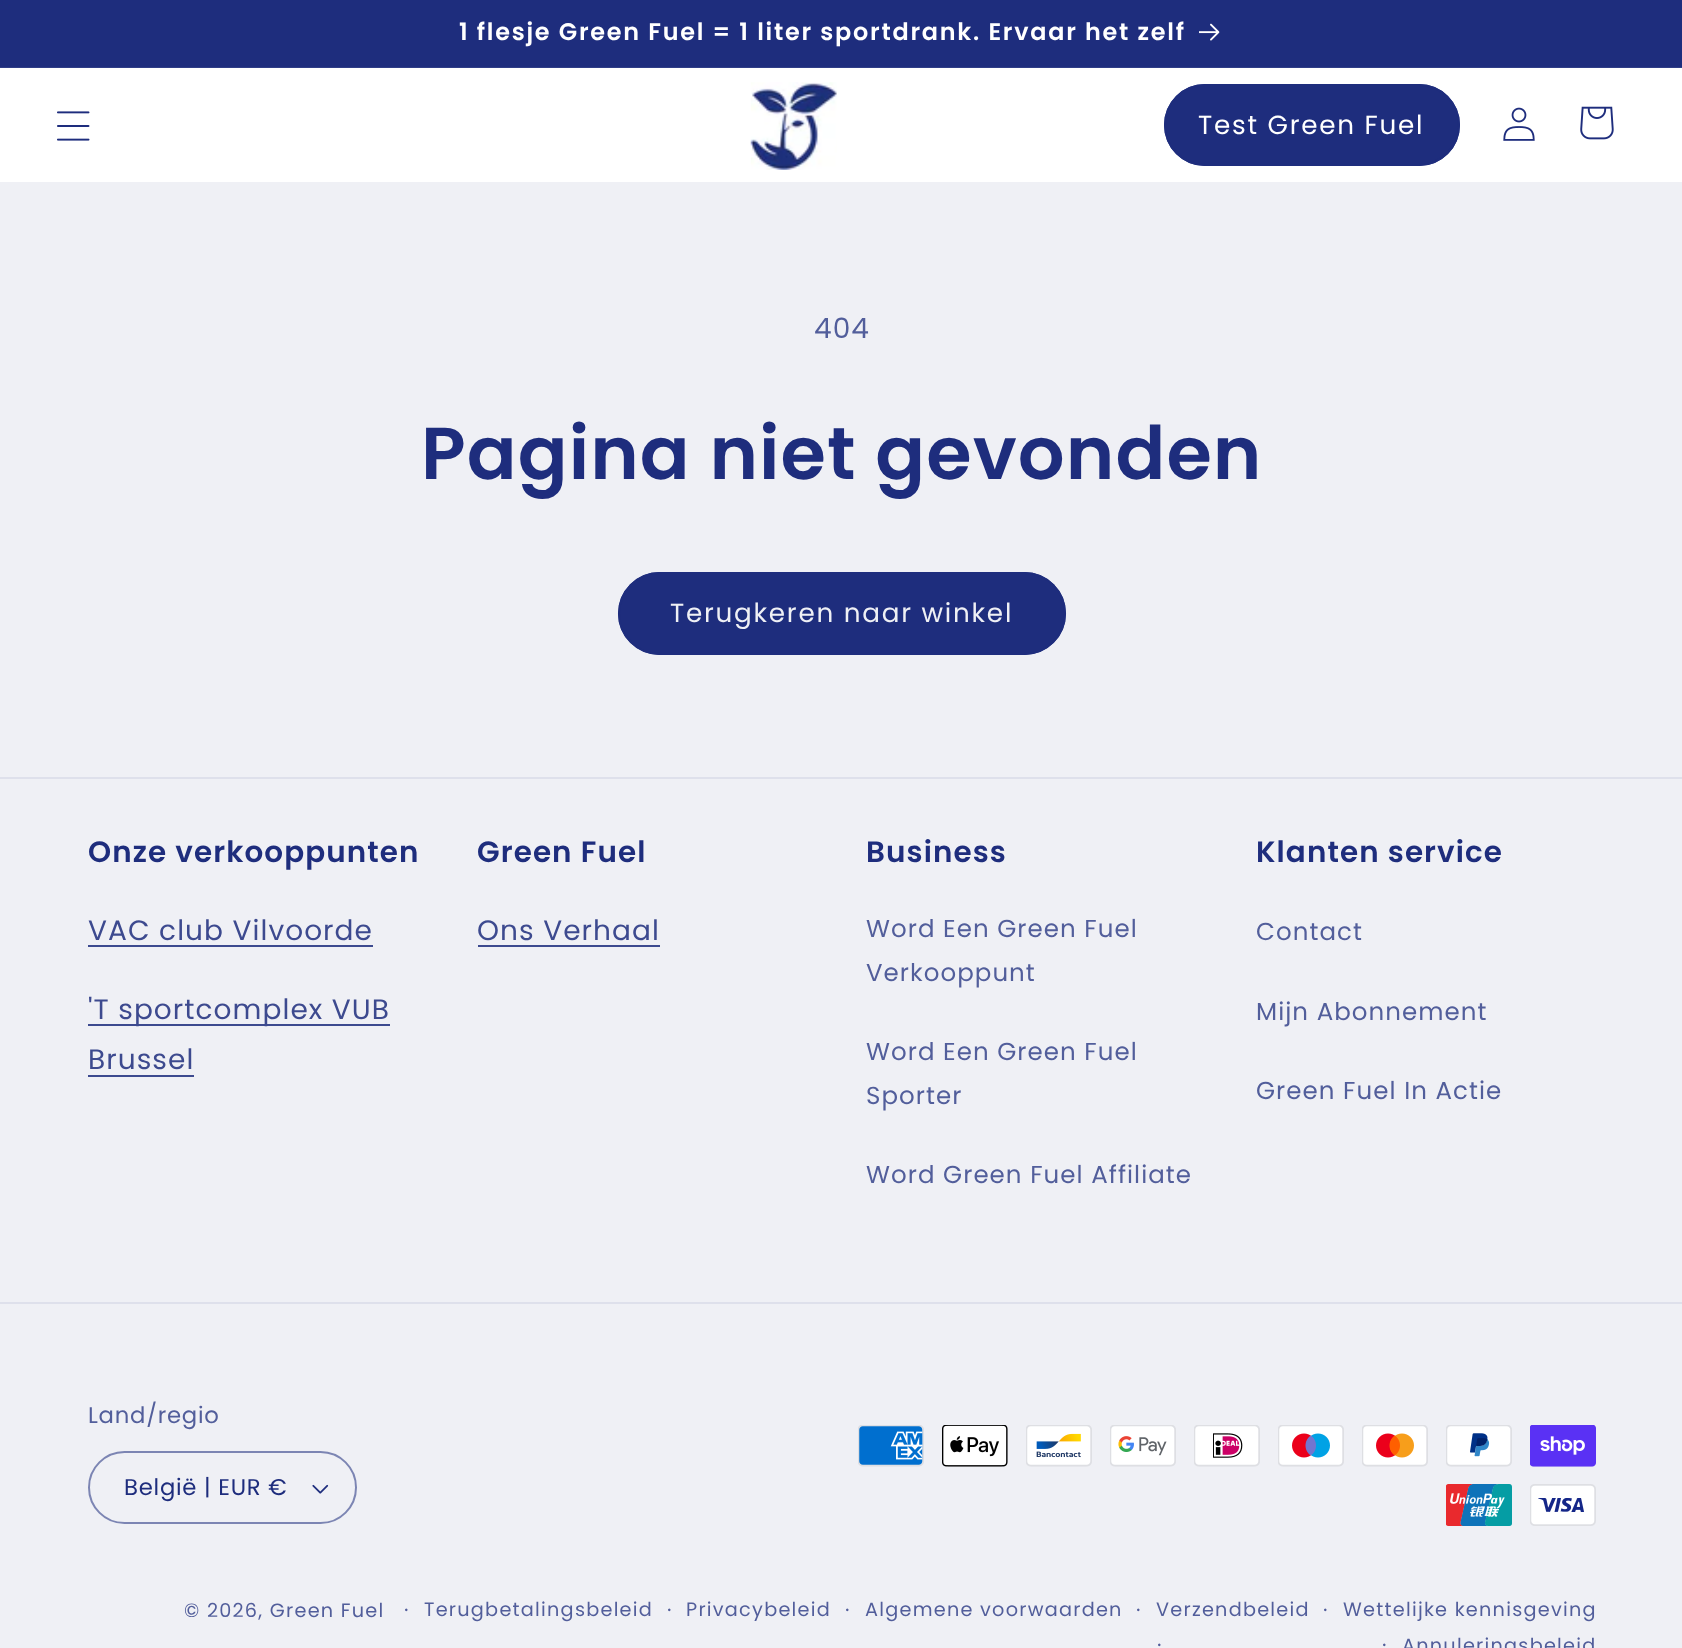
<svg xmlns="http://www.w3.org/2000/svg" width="1682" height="1648">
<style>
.a{font:600 23.9px Poppins;letter-spacing:1.75px;fill:#fff}
.b{font:26.25px Poppins;letter-spacing:1.75px;fill:#fff}
.c{font:28px Poppins;letter-spacing:1.05px;fill:#525e9b}
.d{font:600 73.5px Poppins;letter-spacing:1.1px;fill:#1e2d7d}
.e{font:26.25px Poppins;letter-spacing:1.75px;fill:#eff0f5}
.f{font:600 29.4px Poppins;letter-spacing:1.1px;fill:#1e2d7d}
.g{font:28px Poppins;letter-spacing:1.05px;fill:#3d4a8f}
.h{font:24.5px Poppins;letter-spacing:1.05px;fill:#525e9b}
.i{font:22.75px Poppins;letter-spacing:0.75px;fill:#525e9b}
.j{font:22.75px Poppins;letter-spacing:0.75px;fill:#1e2d7d}
.k{font:19.25px Poppins;letter-spacing:1.25px;fill:#525e9b}
.l{font:21px Poppins;letter-spacing:1.25px;fill:#525e9b}
</style>
<rect width="100%" height="100%" fill="#eff0f5"/>
<path fill="#1e2d7d" d="M0 0h1682v67H0z"/>
<path fill="#303e87" d="M0 67h1682v1H0z"/>
<image href="1.png" x="1199" y="23" width="21" height="18"/>
<path fill="#fff" d="M0 68h1682v114H0z"/>
<image href="2.png" x="57" y="111" width="33" height="30"/>
<image href="3.png" x="750" y="82" width="87" height="88"/>
<rect fill="#1e2d7d" x="1164" y="84" width="296" height="82" rx="41"/>
<rect fill="none" stroke="#1e2d7d" stroke-width="2" x="1165" y="85" width="294" height="80" rx="40"/>
<image href="4.png" x="1503" y="107" width="32" height="34"/>
<image href="5.png" x="1580" y="106" width="34" height="34"/>
<rect fill="#1e2d7d" x="618" y="572" width="448" height="83" rx="41.5"/>
<rect fill="none" stroke="#1e2d7d" stroke-width="2" x="619" y="573" width="446" height="81" rx="40.5"/>
<path fill="#dee0eb" d="M0 777h1682v2H0z"/>
<path fill="#3d4a8f" d="M88 945h285v2H88z"/>
<path fill="#3d4a8f" d="M88 1024h302v2H88z"/>
<path fill="#3d4a8f" d="M88 1075h106v2H88z"/>
<path fill="#3d4a8f" d="M478 945h182v2H478z"/>
<path fill="#dee0eb" d="M0 1302h1682v2H0z"/>
<image href="6.png" x="312" y="1484" width="17" height="10"/>
<rect fill="none" stroke="#7c85b3" stroke-width="2" x="89" y="1452" width="267" height="71" rx="35.5"/>
<image href="7.png" x="858" y="1425" width="66" height="42"/>
<image href="8.png" x="942" y="1425" width="66" height="42"/>
<image href="9.png" x="1026" y="1425" width="66" height="42"/>
<image href="10.png" x="1110" y="1425" width="66" height="42"/>
<image href="11.png" x="1194" y="1425" width="66" height="42"/>
<image href="12.png" x="1278" y="1425" width="66" height="42"/>
<image href="13.png" x="1362" y="1425" width="66" height="42"/>
<image href="14.png" x="1446" y="1425" width="66" height="42"/>
<image href="15.png" x="1530" y="1425" width="66" height="42"/>
<image href="16.png" x="1446" y="1484" width="66" height="42"/>
<image href="17.png" x="1530" y="1484" width="66" height="42"/>
<text class="a" x="459" y="40">1 flesje Green Fuel = 1 liter sportdrank. Ervaar het zelf</text>
<text class="b" x="1198" y="134">Test Green Fuel</text>
<text class="c" x="814" y="338">404</text>
<text class="d" x="421" y="479">Pagina niet gevonden</text>
<text class="e" x="670" y="622">Terugkeren naar winkel</text>
<text class="f" x="88" y="862">Onze verkooppunten</text>
<text class="g" x="88" y="940">VAC club Vilvoorde</text>
<text class="g" x="88" y="1019">'T sportcomplex VUB</text>
<text class="g" x="88" y="1069">Brussel</text>
<text class="f" x="477" y="862">Green Fuel</text>
<text class="g" x="477" y="940">Ons Verhaal</text>
<text class="f" x="866" y="862">Business</text>
<text class="h" x="866" y="937">Word Een Green Fuel</text>
<text class="h" x="866" y="981">Verkooppunt</text>
<text class="h" x="866" y="1060">Word Een Green Fuel</text>
<text class="h" x="866" y="1104">Sporter</text>
<text class="h" x="866" y="1183">Word Green Fuel Affiliate</text>
<text class="f" x="1256" y="862">Klanten service</text>
<text class="h" x="1256" y="940">Contact</text>
<text class="h" x="1256" y="1020">Mijn Abonnement</text>
<text class="h" x="1256" y="1099">Green Fuel In Actie</text>
<text class="i" x="88" y="1423">Land/regio</text>
<text class="j" x="124" y="1495">België | EUR €</text>
<text class="k" x="184" y="1617">© 2026, Green Fuel</text>
<text class="l" x="404" y="1617">·</text>
<text class="k" x="424" y="1616">Terugbetalingsbeleid</text>
<text class="l" x="667" y="1617">·</text>
<text class="k" x="686" y="1616">Privacybeleid</text>
<text class="l" x="845" y="1617">·</text>
<text class="k" x="865" y="1616">Algemene voorwaarden</text>
<text class="l" x="1136" y="1617">·</text>
<text class="k" x="1156" y="1616">Verzendbeleid</text>
<text class="l" x="1323" y="1617">·</text>
<text class="k" x="1343" y="1616">Wettelijke kennisgeving</text>
<text class="l" x="1157" y="1652">·</text>
<text class="l" x="1382" y="1652">·</text>
<text class="k" x="1402" y="1652">Annuleringsbeleid</text>
</svg>
